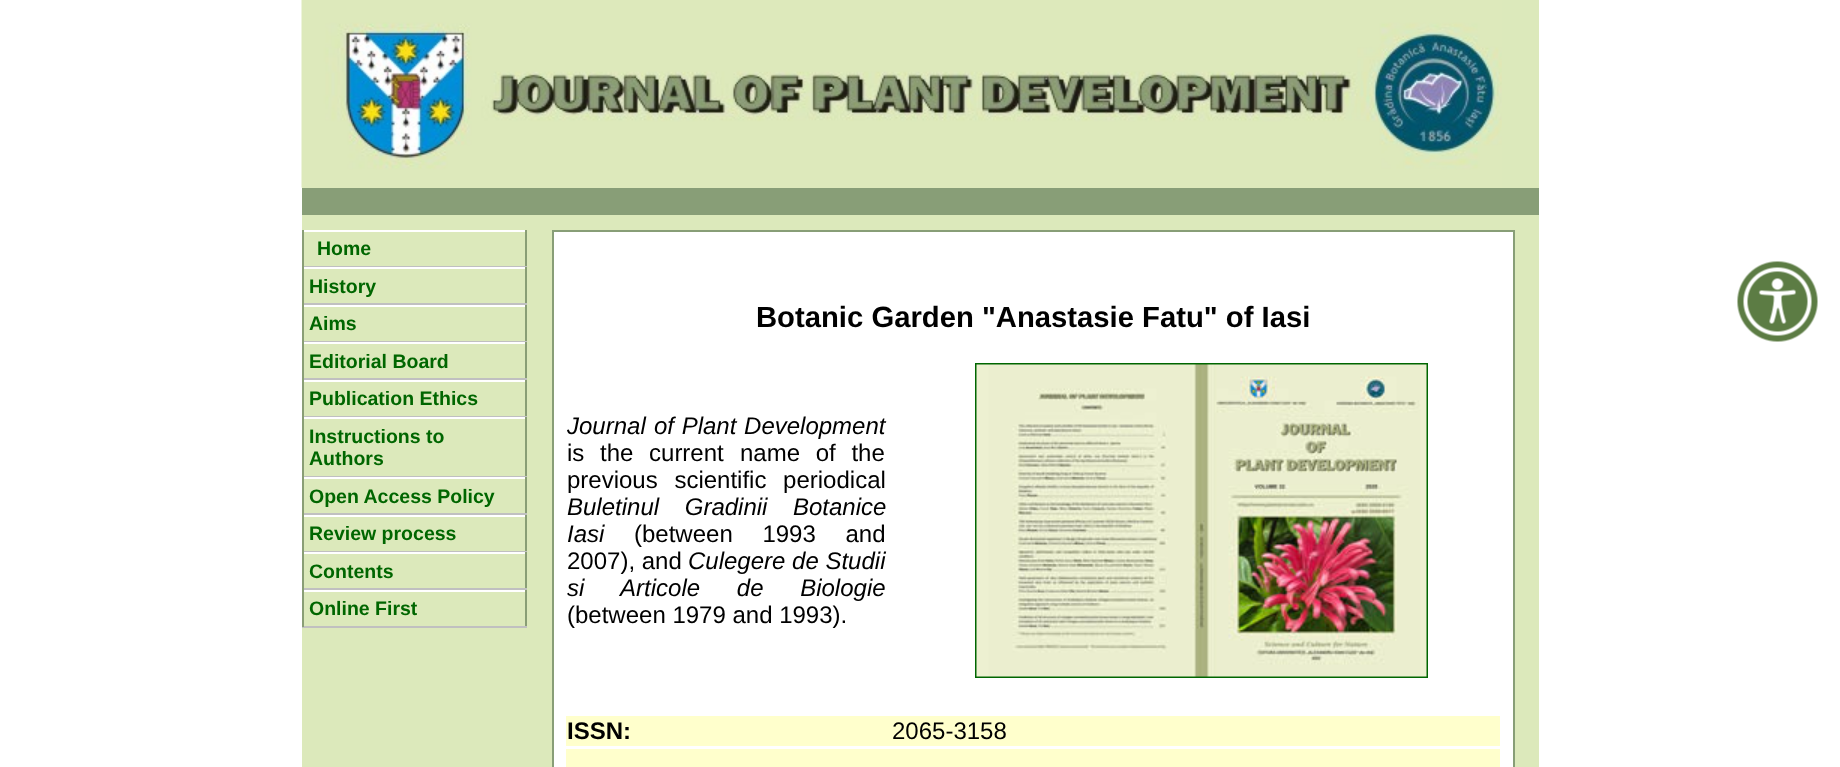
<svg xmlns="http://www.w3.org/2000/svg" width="1840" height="767">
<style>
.a{font:bold 19.5px Liberation Sans;fill:#060}
.b{font:bold 29.25px Liberation Sans;fill:#000}
.c{font:italic 24px Liberation Sans;fill:#000}
.d{font:24px Liberation Sans;fill:#000}
.e{font:bold 24px Liberation Sans;fill:#000}
</style>
<rect width="100%" height="100%" fill="#fff"/>
<path fill="#dce9bb" d="M302 0h1237v767H302z"/>
<image href="1.png" x="301" y="0" width="1201" height="188"/>
<path fill="#889e77" d="M302 188h1237v27H302z"/>
<path fill="#fff" d="M302 230h225v2H302z"/>
<path fill="#899e75" d="M525 230h2v37H525z"/>
<path fill="#c0c0c0" d="M302 266h225v1H302z"/>
<path fill="#899e75" d="M302 230h2v37H302z"/>
<path fill="#fff" d="M302 267h225v2H302z"/>
<path fill="#899e75" d="M525 267h2v38H525z"/>
<path fill="#c0c0c0" d="M302 303h225v2H302z"/>
<path fill="#899e75" d="M302 267h2v38H302z"/>
<path fill="#fff" d="M302 305h225v2H302z"/>
<path fill="#899e75" d="M525 305h2v37H525z"/>
<path fill="#c0c0c0" d="M302 341h225v1H302z"/>
<path fill="#899e75" d="M302 305h2v37H302z"/>
<path fill="#fff" d="M302 342h225v2H302z"/>
<path fill="#899e75" d="M525 342h2v38H525z"/>
<path fill="#c0c0c0" d="M302 378h225v2H302z"/>
<path fill="#899e75" d="M302 342h2v38H302z"/>
<path fill="#fff" d="M302 380h225v2H302z"/>
<path fill="#899e75" d="M525 380h2v37H525z"/>
<path fill="#c0c0c0" d="M302 416h225v1H302z"/>
<path fill="#899e75" d="M302 380h2v37H302z"/>
<path fill="#fff" d="M302 417h225v2H302z"/>
<path fill="#899e75" d="M525 417h2v60H525z"/>
<path fill="#c0c0c0" d="M302 476h225v1H302z"/>
<path fill="#899e75" d="M302 417h2v60H302z"/>
<path fill="#fff" d="M302 477h225v2H302z"/>
<path fill="#899e75" d="M525 477h2v38H525z"/>
<path fill="#c0c0c0" d="M302 513h225v2H302z"/>
<path fill="#899e75" d="M302 477h2v38H302z"/>
<path fill="#fff" d="M302 515h225v2H302z"/>
<path fill="#899e75" d="M525 515h2v37H525z"/>
<path fill="#c0c0c0" d="M302 551h225v1H302z"/>
<path fill="#899e75" d="M302 515h2v37H302z"/>
<path fill="#fff" d="M302 552h225v2H302z"/>
<path fill="#899e75" d="M525 552h2v38H525z"/>
<path fill="#c0c0c0" d="M302 588h225v2H302z"/>
<path fill="#899e75" d="M302 552h2v38H302z"/>
<path fill="#fff" d="M302 590h225v2H302z"/>
<path fill="#899e75" d="M525 590h2v37H525z"/>
<path fill="#c0c0c0" d="M302 626h225v2H302z"/>
<path fill="#899e75" d="M302 590h2v37H302z"/>
<path fill="#fff" stroke="#889e77" stroke-width="2" d="M553 231h961v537H553z"/>
<path fill="none" stroke="#060" stroke-width="2" d="M976 364h451v313H976z"/>
<image href="2.png" x="976" y="364" width="451" height="313"/>
<path fill="#ffc" d="M566 716h934v30H566z"/>
<path fill="#ffc" d="M566 749h934v18H566z"/>
<image href="3.png" x="1737" y="261" width="81" height="81"/>
<text class="a" x="317" y="255">Home</text>
<text class="a" x="309" y="293">History</text>
<text class="a" x="309" y="330">Aims</text>
<text class="a" x="309" y="368">Editorial Board</text>
<text class="a" x="309" y="405">Publication Ethics</text>
<text class="a" x="309" y="443">Instructions to</text>
<text class="a" x="309" y="465">Authors</text>
<text class="a" x="309" y="503">Open Access Policy</text>
<text class="a" x="309" y="540">Review process</text>
<text class="a" x="309" y="578">Contents</text>
<text class="a" x="309" y="615">Online First</text>
<text class="b" x="756" y="327">Botanic Garden "Anastasie Fatu" of Iasi</text>
<text class="c" x="567" y="434">Journal</text>
<text class="c" x="654" y="434" word-spacing="1">of Plant Development</text>
<text class="d" x="567" y="461" word-spacing="9">is the current</text>
<text class="d" x="740" y="461" word-spacing="9">name of the</text>
<text class="d" x="567" y="488" word-spacing="10">previous scientific periodical</text>
<text class="c" x="567" y="515" word-spacing="19">Buletinul Gradinii</text>
<text class="c" x="793" y="515">Botanice</text>
<text class="c" x="567" y="542">Iasi</text>
<text class="d" x="634" y="542" word-spacing="23">(between 1993 and</text>
<text class="d" x="567" y="569">2007), and</text>
<text class="c" x="688" y="569">Culegere de Studii</text>
<text class="c" x="567" y="596" word-spacing="30">si Articole de Biologie</text>
<text class="d" x="567" y="623">(between 1979 and 1993).</text>
<text class="e" x="567" y="739">ISSN:</text>
<text class="d" x="892" y="739">2065-3158</text>
</svg>
